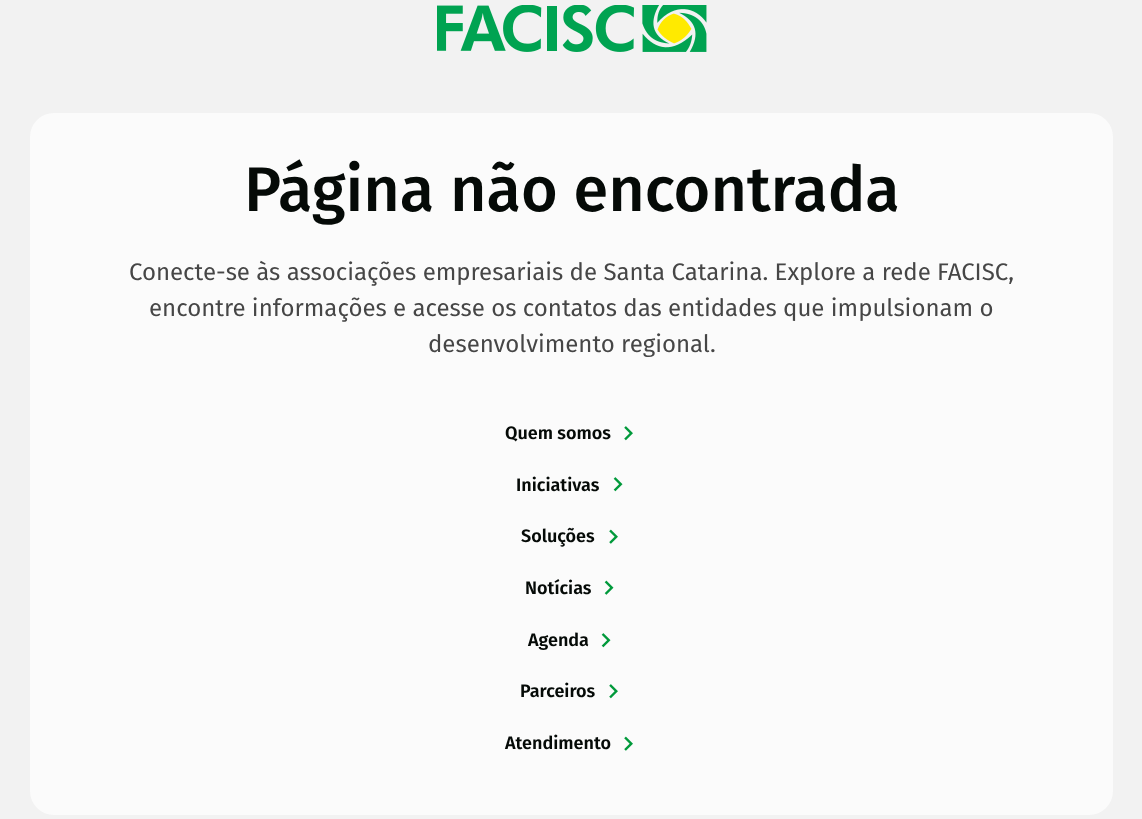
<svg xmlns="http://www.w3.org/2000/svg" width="1142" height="819">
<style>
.a{font:500 63px Fira Sans;fill:#050a07}
.b{font:24px Fira Sans;fill:#464646}
.c{font:600 18px Fira Sans;fill:#050a07}
</style>
<rect width="100%" height="100%" fill="#f2f2f2"/>
<image href="1.png" x="437" y="5" width="270" height="47"/>
<rect fill="#fbfbfb" x="30" y="113" width="1083" height="702" rx="24"/>
<image href="2.png" x="624" y="426" width="9" height="15"/>
<image href="3.png" x="613" y="477" width="10" height="15"/>
<image href="4.png" x="609" y="529" width="9" height="15"/>
<image href="5.png" x="604" y="580" width="10" height="15"/>
<image href="3.png" x="601" y="633" width="10" height="15"/>
<image href="2.png" x="609" y="684" width="9" height="15"/>
<image href="4.png" x="624" y="736" width="9" height="15"/>
<text class="a" x="244" y="211">Página não encontrada</text>
<text class="b" x="129" y="280">Conecte-se às associações empresariais de Santa Catarina. Explore a rede FACISC,</text>
<text class="b" x="149" y="316">encontre informações e acesse os contatos das entidades que impulsionam o</text>
<text class="b" x="428" y="352">desenvolvimento regional.</text>
<text class="c" x="505" y="439">Quem somos</text>
<text class="c" x="516" y="491">Iniciativas</text>
<text class="c" x="521" y="542">Soluções</text>
<text class="c" x="525" y="594">Notícias</text>
<text class="c" x="528" y="646">Agenda</text>
<text class="c" x="520" y="697">Parceiros</text>
<text class="c" x="505" y="749">Atendimento</text>
</svg>
